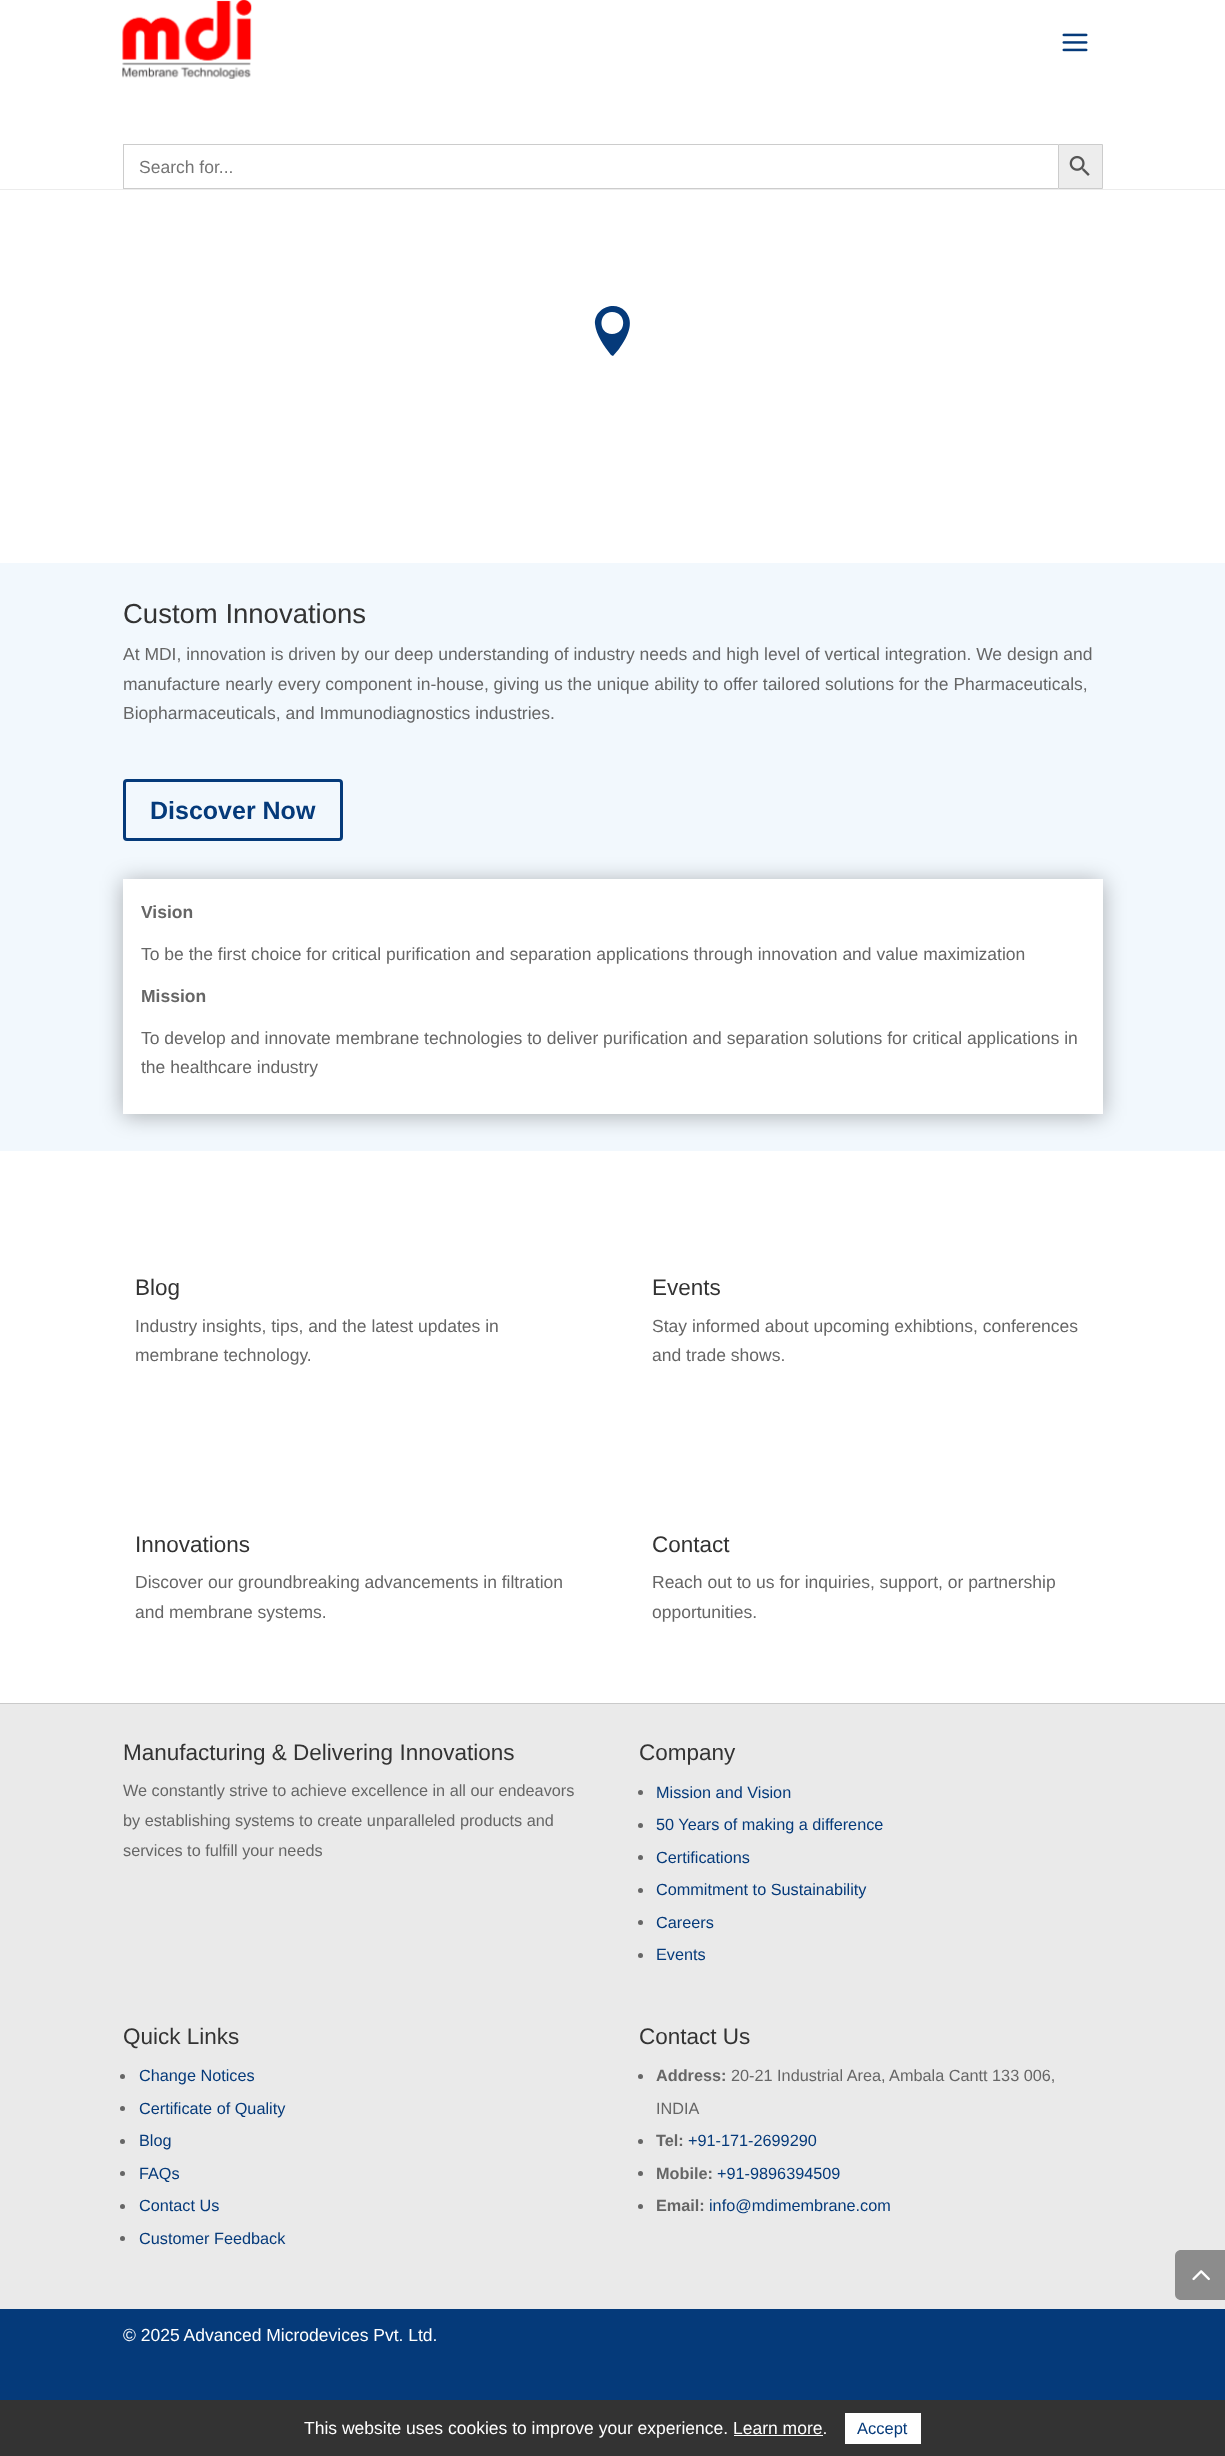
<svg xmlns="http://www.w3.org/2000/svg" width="1225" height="2456">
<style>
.a{font:17.5px Liberation Sans;fill:#757575}
.b{font:27.5px Liberation Sans;fill:#333}
.c{font:17.5px Liberation Sans;fill:#666}
.d{font:bold 25px Liberation Sans;fill:#053a7a}
.e{font:bold 17.5px Liberation Sans;fill:#666}
.f{font:22.5px Liberation Sans;fill:#333}
.g{font:16.25px Liberation Sans;fill:#666}
.h{font:16.25px Liberation Sans;fill:#053a7a}
.i{font:bold 16.25px Liberation Sans;fill:#666}
.j{font:17.5px Liberation Sans;fill:#fff}
.k{font:16.5px Liberation Sans;fill:#053a7a}
</style>
<rect width="100%" height="100%" fill="#fff"/>
<path fill="#ececec" d="M0 189h1225v1H0z"/>
<image href="1.png" x="122" y="0" width="130" height="79"/>
<image href="2.png" x="1062" y="33" width="26" height="19"/>
<path fill="#ccc" d="M123 144h935v1H123z"/>
<path fill="#ccc" d="M123 188h935v1H123z"/>
<path fill="#ccc" d="M123 144h1v45H123z"/>
<path fill="#ededed" stroke="#ccc" d="M1058.5 144.5h44v44H1058.5z"/>
<image href="3.png" x="1069" y="155" width="21" height="21"/>
<path fill="#053a7a" d="M611 355l2 1l6-7c7-10 17-26 6-38c-10-11-31-3-30 13c1 11 9 22 16 31zm1-43c15 0 15 22 0 22c-14 0-14-22 0-22z"/>
<path fill="#f2f8fd" d="M0 563h1225v588H0z"/>
<rect fill="none" stroke="#053a7a" stroke-width="3" x="124.5" y="780.5" width="217" height="59" rx="2.5"/>
<path fill="#0000004d" filter="blur(11px)" d="M123 881h980v235H123z"/>
<path fill="#fff" d="M123 879h980v235H123z"/>
<path fill="#eaeaea" d="M0 1704h1225v605H0z"/>
<path fill="#cacaca" d="M0 1703h1225v1H0z"/>
<circle fill="#666" cx="640.5" cy="1792.5" r="2.5"/>
<circle fill="#666" cx="640.5" cy="1825.5" r="2.5"/>
<circle fill="#666" cx="640.5" cy="1857.5" r="2.5"/>
<circle fill="#666" cx="640.5" cy="1890.5" r="2.5"/>
<circle fill="#666" cx="640.5" cy="1922.5" r="2.5"/>
<circle fill="#666" cx="640.5" cy="1955.5" r="2.5"/>
<circle fill="#666" cx="122.5" cy="2076.5" r="2.5"/>
<circle fill="#666" cx="122.5" cy="2108.5" r="2.5"/>
<circle fill="#666" cx="122.5" cy="2141.5" r="2.5"/>
<circle fill="#666" cx="122.5" cy="2173.5" r="2.5"/>
<circle fill="#666" cx="122.5" cy="2206.5" r="2.5"/>
<circle fill="#666" cx="122.5" cy="2238.5" r="2.5"/>
<circle fill="#666" cx="640.5" cy="2076.5" r="2.5"/>
<circle fill="#666" cx="640.5" cy="2141.5" r="2.5"/>
<circle fill="#666" cx="640.5" cy="2173.5" r="2.5"/>
<circle fill="#666" cx="640.5" cy="2206.5" r="2.5"/>
<path fill="#053a7a" d="M0 2309h1225v91H0z"/>
<path fill="#8c8c8c" d="M1181 2250h44v50h-44c-3.5 0-6-2.5-6-6v-38c0-3.5 2.5-6 6-6z"/>
<image href="4.png" x="1192" y="2270" width="18" height="11"/>
<path fill="#333" d="M0 2400h1225v56H0z"/>
<path fill="#fff" d="M845 2413h76v31H845z"/>
<path fill="#fff" d="M734 2435h89v1H734z"/>
<text class="a" x="139" y="173">Search for...</text>
<text class="b" x="123" y="623">Custom Innovations</text>
<text class="c" x="123" y="660">At MDI, innovation is driven by our deep understanding of industry needs and high level of vertical integration. We design and</text>
<text class="c" x="123" y="690">manufacture nearly every component in-house, giving us the unique ability to offer tailored solutions for the Pharmaceuticals,</text>
<text class="c" x="123" y="719">Biopharmaceuticals, and Immunodiagnostics industries.</text>
<text class="d" x="150" y="819">Discover Now</text>
<text class="e" x="141" y="918">Vision</text>
<text class="c" x="141" y="960">To be the first choice for critical purification and separation applications through innovation and value maximization</text>
<text class="e" x="141" y="1002">Mission</text>
<text class="c" x="141" y="1044">To develop and innovate membrane technologies to deliver purification and separation solutions for critical applications in</text>
<text class="c" x="141" y="1073">the healthcare industry</text>
<text class="f" x="135" y="1295">Blog</text>
<text class="c" x="135" y="1332">Industry insights, tips, and the latest updates in</text>
<text class="c" x="135" y="1361">membrane technology.</text>
<text class="f" x="652" y="1295">Events</text>
<text class="c" x="652" y="1332">Stay informed about upcoming exhibtions, conferences</text>
<text class="c" x="652" y="1361">and trade shows.</text>
<text class="f" x="135" y="1552">Innovations</text>
<text class="c" x="135" y="1588">Discover our groundbreaking advancements in filtration</text>
<text class="c" x="135" y="1618">and membrane systems.</text>
<text class="f" x="652" y="1552">Contact</text>
<text class="c" x="652" y="1588">Reach out to us for inquiries, support, or partnership</text>
<text class="c" x="652" y="1618">opportunities.</text>
<text class="f" x="123" y="1760">Manufacturing &amp; Delivering Innovations</text>
<text class="g" x="123" y="1796">We constantly strive to achieve excellence in all our endeavors</text>
<text class="g" x="123" y="1826">by establishing systems to create unparalleled products and</text>
<text class="g" x="123" y="1856">services to fulfill your needs</text>
<text class="f" x="639" y="1760">Company</text>
<text class="h" x="656" y="1798">Mission and Vision</text>
<text class="h" x="656" y="1830">50 Years of making a difference</text>
<text class="h" x="656" y="1863">Certifications</text>
<text class="h" x="656" y="1895">Commitment to Sustainability</text>
<text class="h" x="656" y="1928">Careers</text>
<text class="h" x="656" y="1960">Events</text>
<text class="f" x="123" y="2044">Quick Links</text>
<text class="h" x="139" y="2081">Change Notices</text>
<text class="h" x="139" y="2114">Certificate of Quality</text>
<text class="h" x="139" y="2146">Blog</text>
<text class="h" x="139" y="2179">FAQs</text>
<text class="h" x="139" y="2211">Contact Us</text>
<text class="h" x="139" y="2244">Customer Feedback</text>
<text class="f" x="639" y="2044">Contact Us</text>
<text class="i" x="656" y="2081">Address:</text>
<text class="g" x="731" y="2081">20-21 Industrial Area, Ambala Cantt 133 006,</text>
<text class="g" x="656" y="2114">INDIA</text>
<text class="i" x="656" y="2146">Tel:</text>
<text class="h" x="688" y="2146">+91-171-2699290</text>
<text class="i" x="656" y="2179">Mobile:</text>
<text class="h" x="717" y="2179">+91-9896394509</text>
<text class="i" x="656" y="2211">Email:</text>
<text class="h" x="709" y="2211">info@mdimembrane.com</text>
<text class="j" x="123" y="2341">© 2025 Advanced Microdevices Pvt. Ltd.</text>
<text class="j" x="304" y="2434">This website uses cookies to improve your experience. Learn more.</text>
<text class="k" x="857" y="2434">Accept</text>
</svg>
